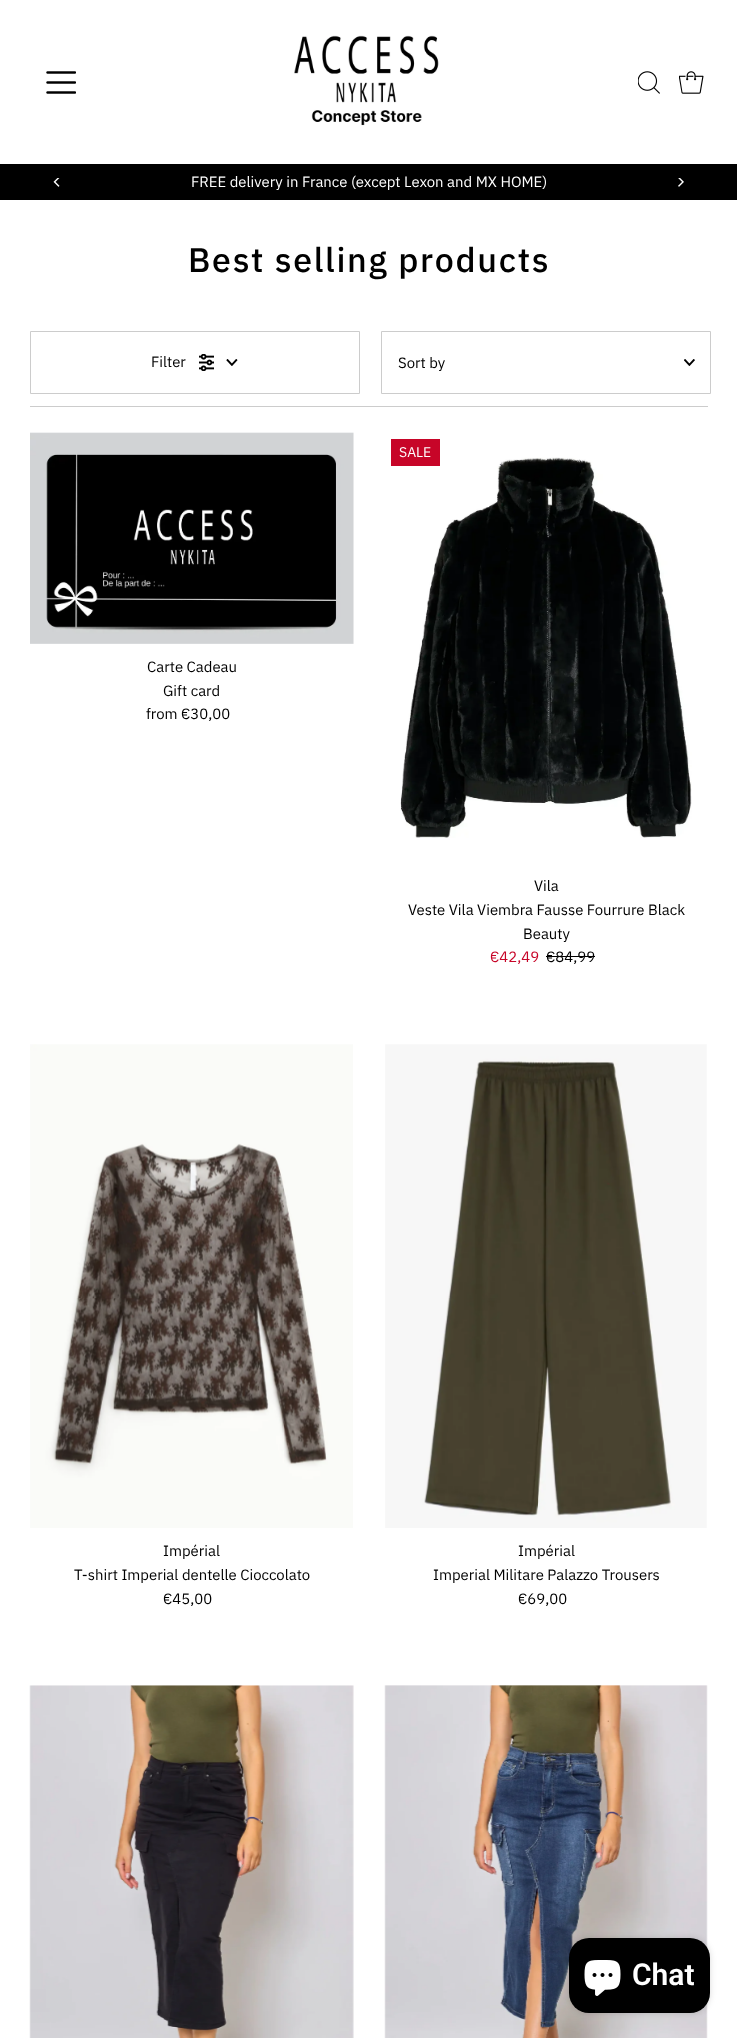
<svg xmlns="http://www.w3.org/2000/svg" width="737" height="2038">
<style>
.a{font:14.9px IBM Plex Sans;fill:#fff}
.b{font:500 34px IBM Plex Sans;letter-spacing:1.7px;fill:#000}
.c{font:14.9px IBM Plex Sans;fill:#000}
.d{font:14px IBM Plex Sans;fill:#fff}
.e{font:14.9px IBM Plex Sans;fill:#c70528}
.f{font:600 30px Roboto;fill:#fff}
</style>
<rect width="100%" height="100%" fill="#fff"/>
<image href="1.png" x="46" y="71" width="30" height="23"/>
<image href="2.png" x="294" y="35" width="145" height="91"/>
<image href="3.png" x="638" y="71" width="22" height="23"/>
<image href="4.png" x="679" y="71" width="25" height="23"/>
<path fill="#000" d="M0 164h737v36H0z"/>
<image href="5.png" x="53" y="178" width="7" height="9"/>
<image href="6.png" x="678" y="178" width="6" height="9"/>
<path fill="#ccc" d="M30 406h678v1H30z"/>
<path fill="none" stroke="#ccc" d="M30.5 331.5h329v62H30.5z"/>
<image href="7.png" x="199" y="354" width="15" height="17"/>
<image href="8.png" x="226" y="359" width="12" height="7"/>
<path fill="none" stroke="#ccc" d="M381.5 331.5h329v62H381.5z"/>
<image href="9.png" x="684" y="359" width="11" height="7"/>
<image href="10.png" x="30" y="432" width="324" height="212"/>
<image href="11.png" x="400" y="457" width="292" height="381"/>
<path fill="#c70528" d="M391 439h49v27H391z"/>
<path fill="#000" d="M546 956h49v1H546z"/>
<image href="12.png" x="30" y="1044" width="323" height="484"/>
<image href="13.png" x="385" y="1044" width="322" height="484"/>
<image href="14.png" x="29" y="1685" width="325" height="353"/>
<image href="15.png" x="384" y="1685" width="324" height="353"/>
<rect fill="#00000026" filter="blur(3px)" x="569" y="1938" width="141" height="75" rx="20"/>
<rect fill="#000" x="569" y="1938" width="141" height="75" rx="20"/>
<image href="16.png" x="584" y="1960" width="37" height="36"/>
<text class="a" x="191" y="187">FREE delivery in France (except Lexon and MX HOME)</text>
<text class="b" x="188" y="272">Best selling products</text>
<text class="c" x="151" y="367">Filter</text>
<text class="c" x="398" y="368">Sort by</text>
<text class="c" x="147" y="672">Carte Cadeau</text>
<text class="c" x="163" y="696">Gift card</text>
<text class="c" x="146" y="719">from €30,00</text>
<text class="d" x="399" y="457">SALE</text>
<text class="c" x="534" y="891">Vila</text>
<text class="c" x="408" y="915">Veste Vila Viembra Fausse Fourrure Black</text>
<text class="c" x="523" y="939">Beauty</text>
<text class="e" x="490" y="962">€42,49</text>
<text class="c" x="546" y="962">€84,99</text>
<text class="c" x="163" y="1556">Impérial</text>
<text class="c" x="74" y="1580">T-shirt Imperial dentelle Cioccolato</text>
<text class="c" x="163" y="1604">€45,00</text>
<text class="c" x="518" y="1556">Impérial</text>
<text class="c" x="433" y="1580">Imperial Militare Palazzo Trousers</text>
<text class="c" x="518" y="1604">€69,00</text>
<text class="f" x="632" y="1985">Chat</text>
</svg>
